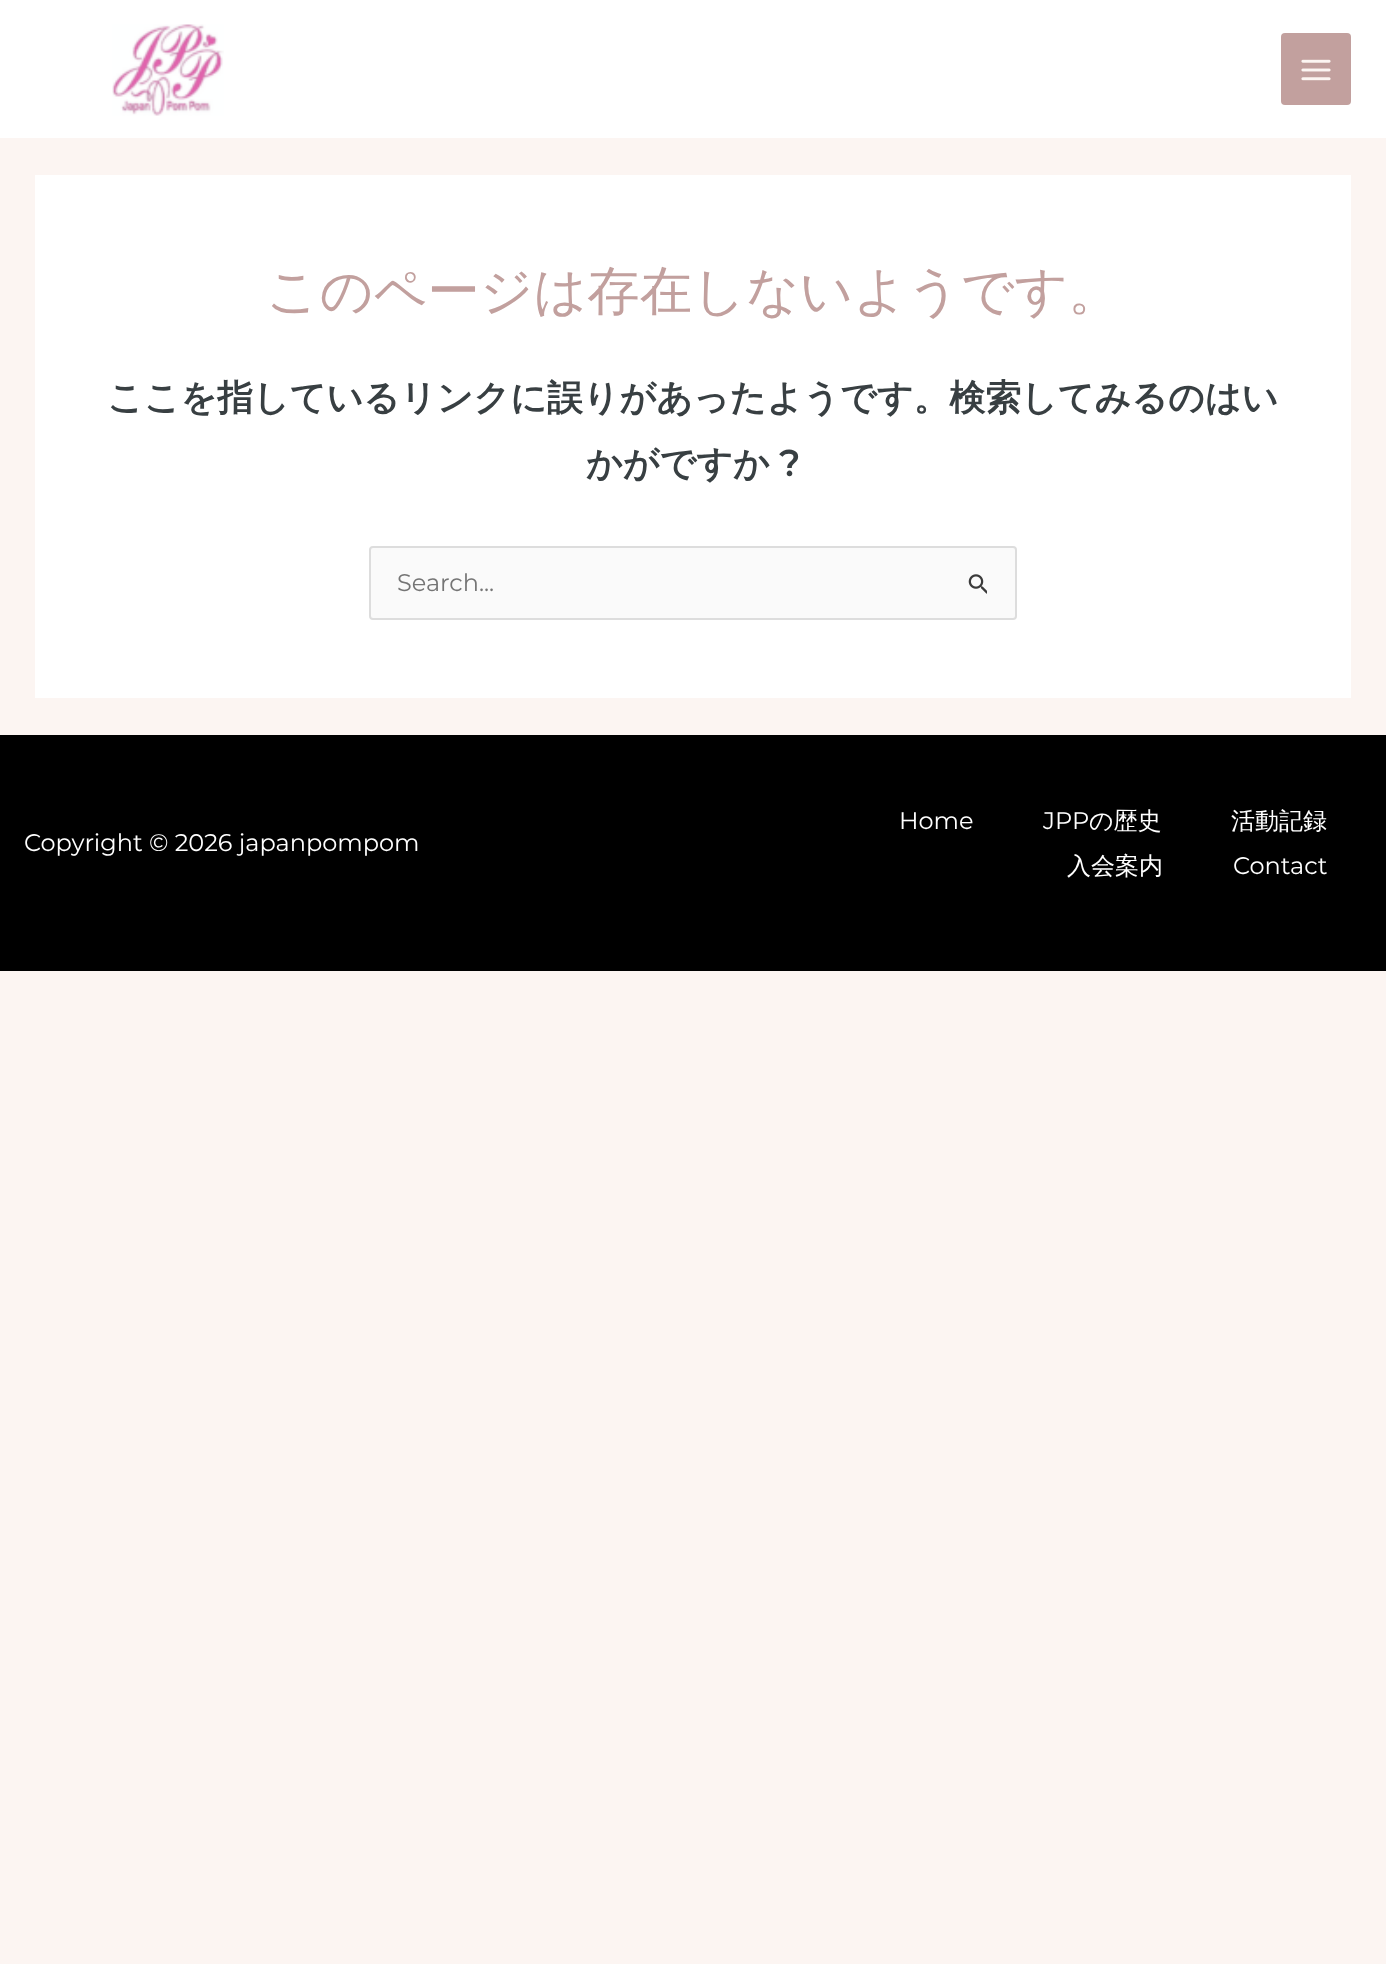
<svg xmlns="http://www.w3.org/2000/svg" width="1386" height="1964">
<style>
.a{font:500 52.5px WenQuanYi Zen Hei;fill:#c2a09e}
.b{font:bold 35.9px WenQuanYi Zen Hei;fill:#383f42}
.c{font:bold 35.9px Montserrat;fill:#383f42}
.d{font:24px Montserrat;fill:#757575}
.e{font:24px Montserrat;fill:#fff}
.f{font:500 24px WenQuanYi Zen Hei;fill:#fff}
</style>
<rect width="100%" height="100%" fill="#fcf5f2"/>
<path fill="#fff" d="M0 0h1386v138H0z"/>
<image href="1.png" x="112" y="24" width="112" height="92"/>
<rect fill="#c2a09e" x="1281" y="33" width="70" height="72" rx="4"/>
<image href="2.png" x="1301" y="59" width="30" height="22"/>
<path fill="#fff" d="M35 175h1316v523H35z"/>
<rect fill="#fafafa" stroke="#ddd" stroke-width="2" x="370" y="547" width="646" height="72" rx="3"/>
<image href="3.png" x="968" y="574" width="19" height="20"/>
<path fill="#000" d="M0 735h1386v236H0z"/>
<text class="a" x="266" y="309">このページは存在しないようです。</text>
<text class="b" x="107" y="410">ここを指しているリンクに誤りがあったようです。検索してみるのはい</text>
<text class="b" x="586" y="476">かがですか</text>
<text class="c" x="779" y="476">?</text>
<text class="d" x="397" y="591">Search...</text>
<text class="e" x="24" y="851">Copyright © 2026 japanpompom</text>
<text class="e" x="899" y="829">Home</text>
<text class="e" x="1043" y="829">JPP</text>
<text class="f" x="1089" y="829">の歴史</text>
<text class="f" x="1231" y="829">活動記録</text>
<text class="f" x="1067" y="874">入会案内</text>
<text class="e" x="1233" y="874">Contact</text>
</svg>
